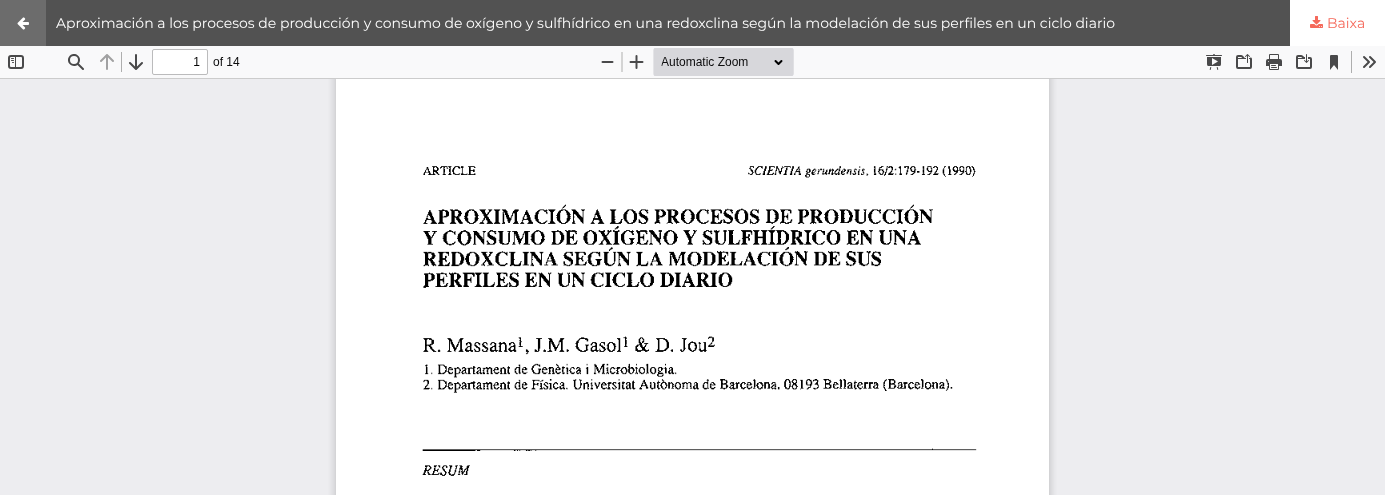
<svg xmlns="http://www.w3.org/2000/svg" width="1385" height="495">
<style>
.a{font:14px Montserrat;fill:#fff}
.b{font:14px Montserrat;fill:#f5695b}
</style>
<rect width="100%" height="100%" fill="#fff"/>
<path fill="#525252" d="M46 0h1244v46H46z"/>
<path fill="#6c6c6c" d="M0 0h46v46H0z"/>
<image href="1.png" x="17" y="17" width="12" height="13"/>
<image href="2.png" x="1310" y="16" width="13" height="12"/>
<image href="3.png" x="0" y="46" width="1385" height="449"/>
<text class="a" x="56" y="28">Aproximación a los procesos de producción y consumo de oxígeno y sulfhídrico en una redoxclina según la modelación de sus perfiles en un ciclo diario</text>
<text class="b" x="1327" y="28">Baixa</text>
</svg>
